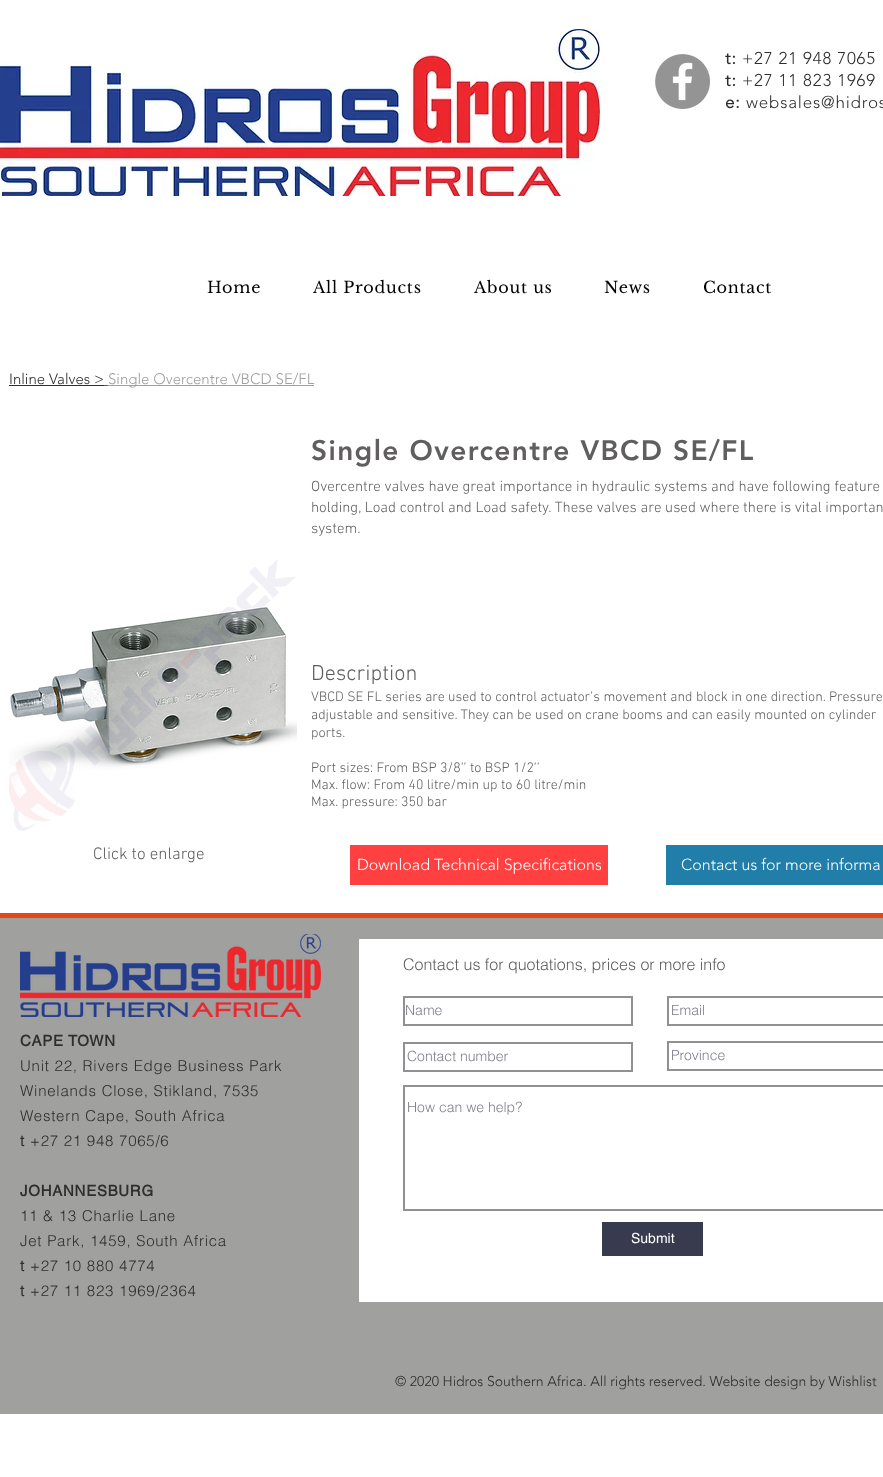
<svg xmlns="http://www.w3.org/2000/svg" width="883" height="1477">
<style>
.a{font:bold 17px 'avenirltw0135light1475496';letter-spacing:0.8px;fill:#2f2e2e}
.b{font:300 17px 'avenirltw0135light1475496';letter-spacing:0.8px;fill:#2f2e2e}
.c{font:16px Libre Baskerville;letter-spacing:0.75px;fill:#000}
.d{font:300 15px 'avenirltw0135light1475496';fill:#2f2e2e}
.e{font:300 15px 'avenirltw0135light1475496';fill:#a0a09f}
.f{font:900 28px 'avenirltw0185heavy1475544';letter-spacing:1.4px;fill:#605e5e}
.g{font:300 15px 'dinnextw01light';fill:#605e5e}
.h{font:300 22px 'dinnextw01light';fill:#605e5e}
.i{font:300 14px 'dinnextw01light';fill:#605e5e}
.j{font:300 17px 'dinnextw01light';fill:#605e5e}
.k{font:300 16px 'avenirltw0135light1475496';fill:#fff}
.l{font:300 16px helvetica;fill:#605e5e}
.m{font:300 14px helvetica;fill:#7f808a}
.n{font:14px helvetica;fill:#fff}
.o{font:bold 15px helvetica;letter-spacing:0.75px;fill:#2f2e2e}
.p{font:300 15px helvetica;letter-spacing:0.75px;fill:#2f2e2e}
.q{font:bold 15px 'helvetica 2';letter-spacing:0.75px;fill:#2f2e2e}
.r{font:300 14px 'avenirltw0135light1475496';fill:#2f2e2e}
</style>
<rect width="100%" height="100%" fill="#fff"/>
<image href="1.png" x="0" y="29" width="600" height="167"/>
<image href="2.png" x="655" y="54" width="55" height="55"/>
<path fill="#2f2e2e" d="M9 385h95v1H9z"/>
<path fill="#605e5e" d="M104 385h4v1H104z"/>
<path fill="#a0a09f" d="M108 385h206v1H108z"/>
<image href="3.png" x="9" y="560" width="288" height="271"/>
<path fill="#ff4040" d="M350 845h258v40H350z"/>
<path fill="#207ea9" d="M666 845h217v40H666z"/>
<path fill="#a0a09f" d="M0 918h883v496H0z"/>
<path fill="#e64815" d="M0 913h883v5H0z"/>
<image href="4.png" x="20" y="934" width="301" height="83"/>
<path fill="#fff" d="M359 939h524v363H359z"/>
<path fill="none" stroke="#919191" stroke-width="2" d="M404 997h228v28H404z"/>
<path fill="none" stroke="#919191" stroke-width="2" d="M668 997h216v28H668z"/>
<path fill="none" stroke="#919191" stroke-width="2" d="M404 1043h228v28H404z"/>
<path fill="none" stroke="#919191" stroke-width="2" d="M668 1042h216v28H668z"/>
<path fill="none" stroke="#919191" stroke-width="2" d="M404 1086h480v124H404z"/>
<path fill="#373b4d" d="M602 1222h101v34H602z"/>
<text class="a" x="725" y="64">t:</text>
<text class="b" x="742" y="64">+27 21 948 7065</text>
<text class="a" x="725" y="86">t:</text>
<text class="b" x="742" y="86">+27 11 823 1969</text>
<text class="a" x="725" y="108">e:</text>
<text class="b" x="746" y="108">websales@hidros</text>
<text class="c" x="207" y="293">Home</text>
<text class="c" x="313" y="293">All Products</text>
<text class="c" x="474" y="293">About us</text>
<text class="c" x="604" y="293">News</text>
<text class="c" x="703" y="293">Contact</text>
<text class="d" x="9" y="384">Inline Valves &gt;</text>
<text class="e" x="108" y="384">Single Overcentre VBCD SE/FL</text>
<text class="f" x="311" y="460">Single Overcentre VBCD SE/FL</text>
<text class="g" x="311" y="491">Overcentre valves have great importance in hydraulic systems and have following feature</text>
<text class="g" x="311" y="512">holding, Load control and Load safety. These valves are used where there is vital importan</text>
<text class="g" x="311" y="533">system.</text>
<text class="h" x="311" y="680">Description</text>
<text class="i" x="311" y="701">VBCD SE FL series are used to control actuator’s movement and block in one direction. Pressure</text>
<text class="i" x="311" y="719">adjustable and sensitive. They can be used on crane booms and can easily mounted on cylinder</text>
<text class="i" x="311" y="737">ports.</text>
<text class="i" x="311" y="772">Port sizes: From BSP 3/8’’ to BSP 1/2’’</text>
<text class="i" x="311" y="789">Max. flow: From 40 litre/min up to 60 litre/min</text>
<text class="i" x="311" y="806">Max. pressure: 350 bar</text>
<text class="j" x="93" y="859">Click to enlarge</text>
<text class="k" x="357" y="870">Download Technical Specifications</text>
<text class="k" x="681" y="870">Contact us for more informa</text>
<text class="l" x="403" y="970">Contact us for quotations, prices or more info</text>
<text class="m" x="405" y="1015">Name</text>
<text class="m" x="671" y="1015">Email</text>
<text class="m" x="407" y="1061">Contact number</text>
<text class="m" x="671" y="1060">Province</text>
<text class="m" x="407" y="1112">How can we help?</text>
<text class="n" x="631" y="1243">Submit</text>
<text class="o" x="20" y="1046">CAPE TOWN</text>
<text class="p" x="20" y="1071">Unit 22, Rivers Edge Business Park</text>
<text class="p" x="20" y="1096">Winelands Close, Stikland, 7535</text>
<text class="p" x="20" y="1121">Western Cape, South Africa</text>
<text class="q" x="20" y="1146">t</text>
<text class="p" x="30" y="1146">+27 21 948 7065/6</text>
<text class="o" x="20" y="1196">JOHANNESBURG</text>
<text class="p" x="20" y="1221">11 &amp; 13 Charlie Lane</text>
<text class="p" x="20" y="1246">Jet Park, 1459, South Africa</text>
<text class="q" x="20" y="1271">t</text>
<text class="p" x="30" y="1271">+27 10 880 4774</text>
<text class="q" x="20" y="1296">t</text>
<text class="p" x="30" y="1296">+27 11 823 1969/2364</text>
<text class="r" x="395" y="1386">© 2020 Hidros Southern Africa. All rights reserved. Website design by Wishlist</text>
</svg>
